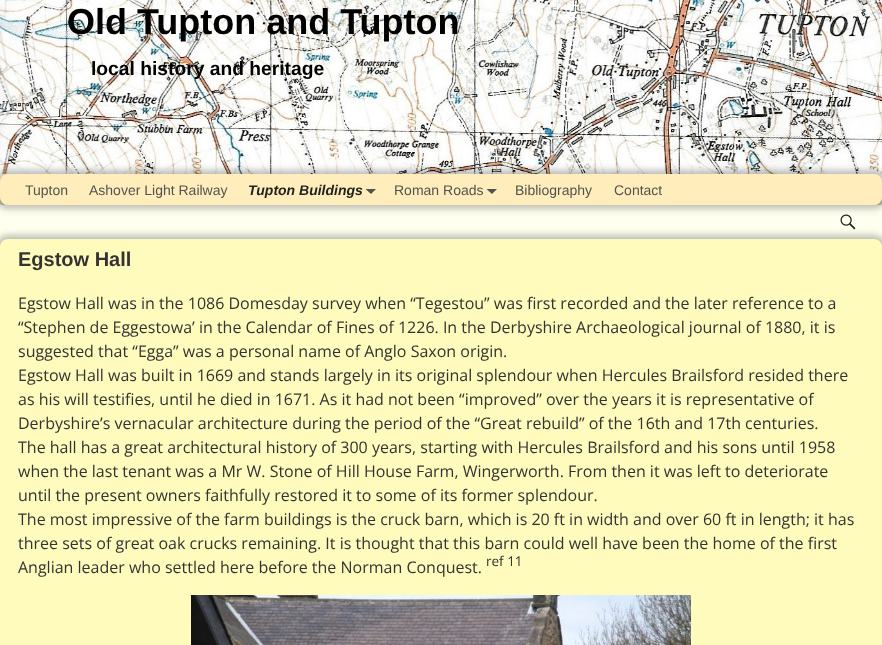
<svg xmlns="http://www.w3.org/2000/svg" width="882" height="645">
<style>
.a{font:bold 36px Liberation Sans;fill:#000}
.b{font:bold 19.25px Liberation Sans;fill:#000}
.c{font:14px Liberation Sans;fill:#525252}
.d{font:italic bold 14px Liberation Sans;fill:#222}
.e{font:bold 20px Liberation Sans;fill:#333}
.f{font:16px Open Sans;fill:#333}
.g{font:13.5px Open Sans;fill:#333}
</style>
<rect width="100%" height="100%" fill="#fffff0"/>
<rect fill="#00000040" filter="blur(3px)" x="-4" y="-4" width="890" height="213" rx="12"/>
<rect fill="#fffff0" width="882" height="205" rx="8"/>
<image href="1.png" x="0" y="0" width="882" height="174"/>
<path fill="#fffff0" d="M0 205h882v9H0z"/>
<rect fill="#00000040" filter="blur(3px)" x="-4" y="170" width="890" height="39" rx="12"/>
<rect fill="#feb" y="174" width="882" height="31" rx="8"/>
<path fill="#525252" d="M365.5 189h10.5l-5 5z"/>
<path fill="#525252" d="M486.5 189h10.5l-5 5z"/>
<rect fill="#00000040" filter="blur(3px)" x="-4" y="235" width="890" height="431" rx="12"/>
<image href="2.png" x="840" y="214" width="16" height="16"/>
<rect fill="#fffbbd" y="239" width="882" height="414" rx="8"/>
<image href="3.png" x="191" y="595" width="500" height="50"/>
<text class="a" x="67" y="34">Old Tupton and Tupton</text>
<text class="b" x="91" y="75">local history and heritage</text>
<text class="c" x="25" y="195">Tupton</text>
<text class="c" x="89" y="195">Ashover Light Railway</text>
<text class="d" x="248" y="195">Tupton Buildings</text>
<text class="c" x="394" y="195">Roman Roads</text>
<text class="c" x="515" y="195">Bibliography</text>
<text class="c" x="614" y="195">Contact</text>
<text class="e" x="18" y="266">Egstow Hall</text>
<text class="f" x="18" y="309">Egstow Hall was in the 1086 Domesday survey when “Tegestou” was first recorded and the later reference to a</text>
<text class="f" x="18" y="333">“Stephen de Eggestowa’ in the Calendar of Fines of 1226. In the Derbyshire Archaeological journal of 1880, it is</text>
<text class="f" x="18" y="357">suggested that “Egga” was a personal name of Anglo Saxon origin.</text>
<text class="f" x="18" y="381">Egstow Hall was built in 1669 and stands largely in its original splendour when Hercules Brailsford resided there</text>
<text class="f" x="18" y="405">as his will testifies, until he died in 1671. As it had not been “improved” over the years it is representative of</text>
<text class="f" x="18" y="429">Derbyshire’s vernacular architecture during the period of the “Great rebuild” of the 16th and 17th centuries.</text>
<text class="f" x="18" y="453">The hall has a great architectural history of 300 years, starting with Hercules Brailsford and his sons until 1958</text>
<text class="f" x="18" y="477">when the last tenant was a Mr W. Stone of Hill House Farm, Wingerworth. From then it was left to deteriorate</text>
<text class="f" x="18" y="501">until the present owners faithfully restored it to some of its former splendour.</text>
<text class="f" x="18" y="525">The most impressive of the farm buildings is the cruck barn, which is 20 ft in width and over 60 ft in length; it has</text>
<text class="f" x="18" y="549">three sets of great oak crucks remaining. It is thought that this barn could well have been the home of the first</text>
<text class="f" x="18" y="573">Anglian leader who settled here before the Norman Conquest.</text>
<text class="g" x="486" y="566">ref 11</text>
</svg>
